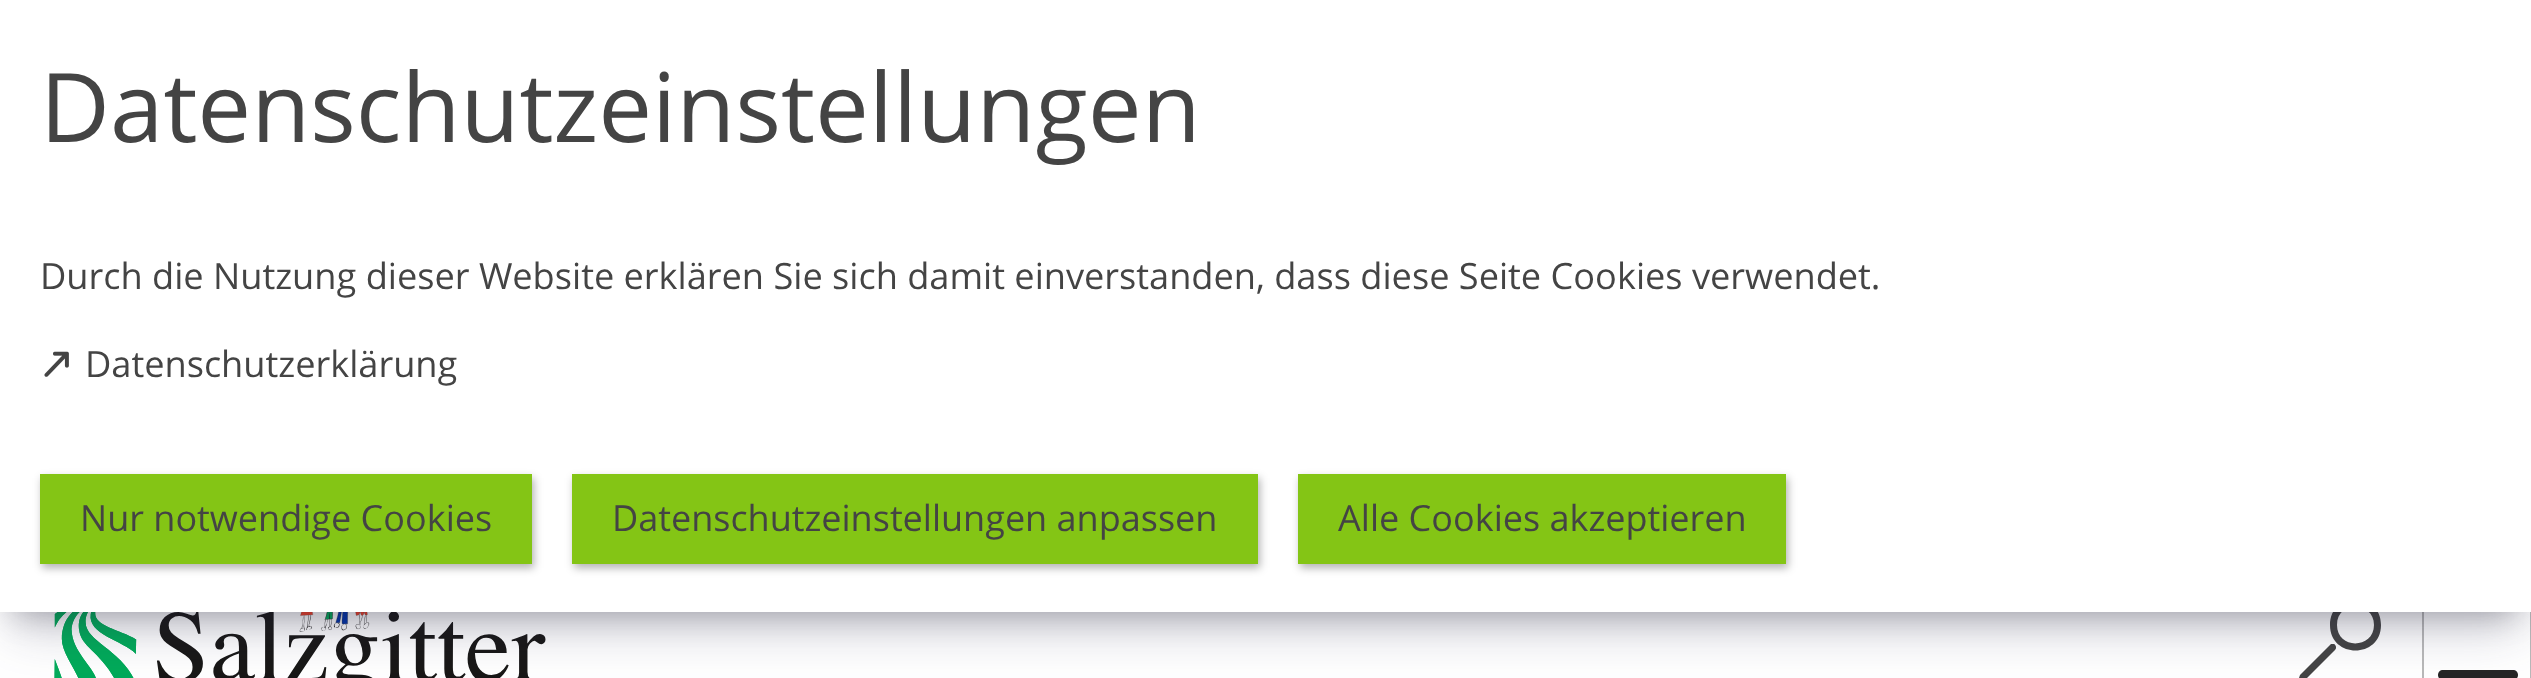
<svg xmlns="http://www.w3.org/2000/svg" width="2531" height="678">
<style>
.a{font:96px Open Sans;fill:#444}
.b{font:36.15px Open Sans;fill:#444}
.c{font:36px Open Sans;fill:#444}
</style>
<rect width="100%" height="100%" fill="#fff"/>
<image href="2.png" x="54" y="612" width="492" height="66"/>
<path fill="#444" d="M2330 625c0-34 51-34 51 0c0 34-51 34-51 0zm44 0c0-24-37-25-37 0c0 25 37 24 37 0zm-75 53l1-3l31-31c1 0 2 0 3 0c2 1 3 4 1 6l-30 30c-1 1-3 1-5 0c-1-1-1-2-1-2z"/>
<path fill="#b9b9b9" d="M2530 612h1v66H2530z"/>
<path fill="#b9b9b9" d="M2422 612h2v66H2422z"/>
<path fill="#0000004d" filter="blur(16px)" d="M16 32h2500v580H16z"/>
<image href="3.png" x="2438" y="670" width="80" height="8"/>
<path fill="#32325d40" filter="blur(27px)" d="M10 36h2512v592H10z"/>
<path fill="#fff" d="M0 0h2531v612H0z"/>
<image href="1.png" x="44" y="351" width="25" height="26"/>
<path fill="#0000004d" filter="blur(4px)" d="M42 478h492v90H42z"/>
<path fill="#84c515" d="M40 474h492v90H40z"/>
<path fill="#0000004d" filter="blur(4px)" d="M574 478h686v90H574z"/>
<path fill="#84c515" d="M572 474h686v90H572z"/>
<path fill="#0000004d" filter="blur(4px)" d="M1300 478h488v90H1300z"/>
<path fill="#84c515" d="M1298 474h488v90H1298z"/>
<text class="a" x="40" y="142">Datenschutzeinstellungen</text>
<text class="b" x="40" y="289">Durch die Nutzung dieser Website erklären Sie sich damit einverstanden, dass diese Seite Cookies verwendet.</text>
<text class="b" x="85" y="377">Datenschutzerklärung</text>
<text class="c" x="80" y="531">Nur notwendige Cookies</text>
<text class="c" x="612" y="531">Datenschutzeinstellungen anpassen</text>
<text class="c" x="1338" y="531">Alle Cookies akzeptieren</text>
</svg>
